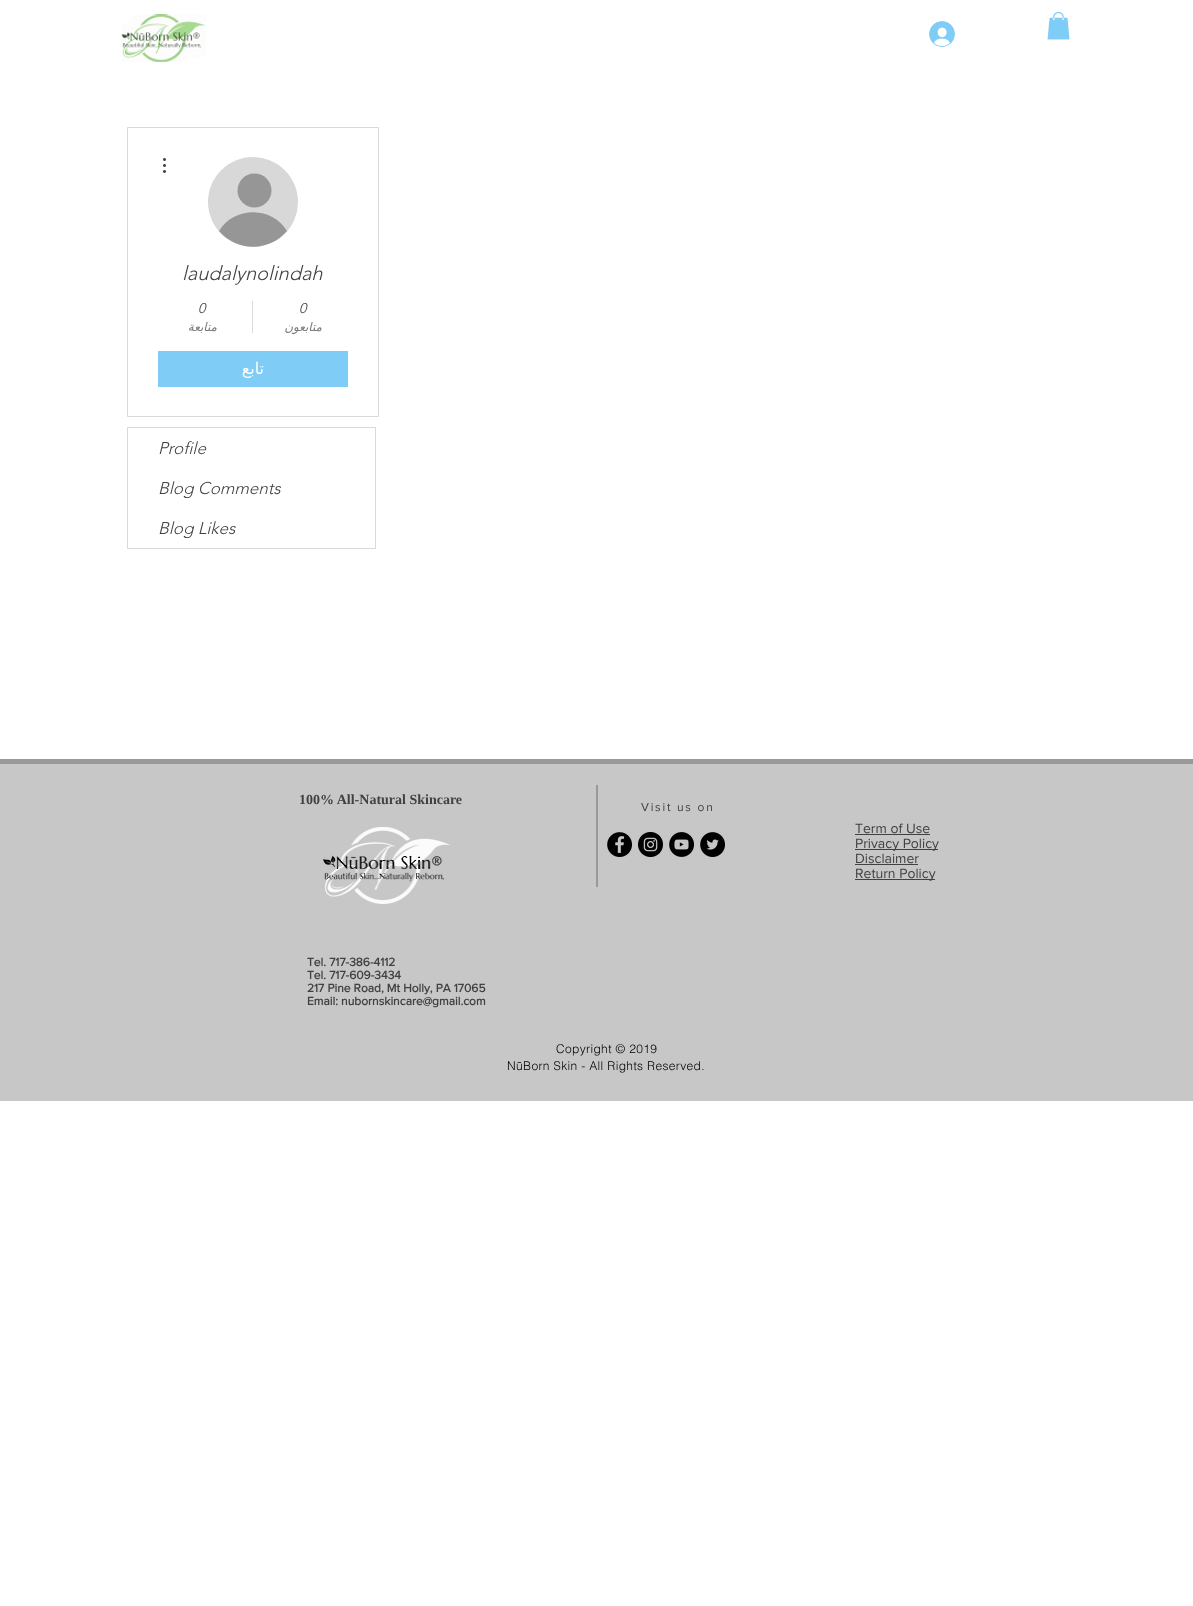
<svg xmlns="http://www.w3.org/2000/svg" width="1193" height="1606">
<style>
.a{font:italic 300 20px 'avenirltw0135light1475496';fill:#414141}
.b{font:italic 300 14px 'avenirltw0135light1475496';fill:#414141}
.c{font:italic 12px DejaVu Sans;direction:rtl;fill:#7a7a7a}
.d{font:16px DejaVu Sans;direction:rtl;fill:#fff}
.e{font:italic 300 17px 'avenirltw0135light1475496';fill:#414141}
.f{font:bold 14px Liberation Serif;fill:#414141}
.g{font:12px 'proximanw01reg';letter-spacing:1.75px;fill:#414141}
.h{font:14px 'proximanw01reg';fill:#414141}
.i{font:bold 12px 'proximanw01reg';fill:#414141}
.j{font:300 12px helvetica;letter-spacing:0.35px;fill:#000}
</style>
<rect width="100%" height="100%" fill="#fff"/>
<image href="1.png" x="121" y="14" width="85" height="48"/>
<image href="2.png" x="929" y="21" width="26" height="26"/>
<image href="3.png" x="1047" y="12" width="23" height="28"/>
<path fill="none" stroke="#d9d9d9" d="M127.5 127.5h251v289H127.5z"/>
<circle fill="#d8d8d8" cx="253" cy="202" r="45"/>
<circle fill="#969696" cx="254.5" cy="190.5" r="17"/>
<path fill="#969696" d="M287 231c-18 21-50 21-68 0c15-25 53-25 68 0z"/>
<image href="4.png" x="163" y="158" width="3" height="15"/>
<path fill="#d9d9d9" d="M252 301h1v32H252z"/>
<path fill="#7fccf7" d="M158 351h190v36H158z"/>
<path fill="none" stroke="#d9d9d9" d="M127.5 427.5h248v121H127.5z"/>
<path fill="#c7c7c7" d="M0 764h1193v337H0z"/>
<path fill="#999997" d="M0 759h1193v5H0z"/>
<path fill="#999997" d="M596 785h2v102H596z"/>
<image href="5.png" x="323" y="827" width="127" height="77"/>
<image href="6.png" x="607" y="832" width="25" height="25"/>
<image href="7.png" x="638" y="832" width="25" height="25"/>
<image href="8.png" x="669" y="832" width="25" height="25"/>
<image href="9.png" x="700" y="832" width="25" height="25"/>
<path fill="#414141" d="M855 834h75v1H855z"/>
<path fill="#414141" d="M855 849h83v1H855z"/>
<path fill="#414141" d="M855 864h63v1H855z"/>
<path fill="#414141" d="M855 879h80v1H855z"/>
<text class="a" x="182" y="280">laudalynolindah</text>
<text class="b" x="198" y="313">0</text>
<text class="c" x="217" y="331">متابعة</text>
<text class="b" x="299" y="313">0</text>
<text class="c" x="322" y="331">متابعون</text>
<text class="d" x="264" y="374">تابع</text>
<text class="e" x="158" y="454">Profile</text>
<text class="e" x="158" y="494">Blog Comments</text>
<text class="e" x="158" y="534">Blog Likes</text>
<text class="f" x="299" y="804">100% All-Natural Skincare</text>
<text class="g" x="641" y="811">Visit us on</text>
<text class="h" x="855" y="833">Term of Use</text>
<text class="h" x="855" y="848">Privacy Policy</text>
<text class="h" x="855" y="863">Disclaimer</text>
<text class="h" x="855" y="878">Return Policy</text>
<text class="i" x="307" y="966">Tel. 717-386-4112</text>
<text class="i" x="307" y="979">Tel. 717-609-3434</text>
<text class="i" x="307" y="992">217 Pine Road, Mt Holly, PA 17065</text>
<text class="i" x="307" y="1005">Email: nubornskincare@gmail.com</text>
<text class="j" x="556" y="1053">Copyright © 2019</text>
<text class="j" x="507" y="1070">NūBorn Skin - All Rights Reserved.</text>
</svg>
